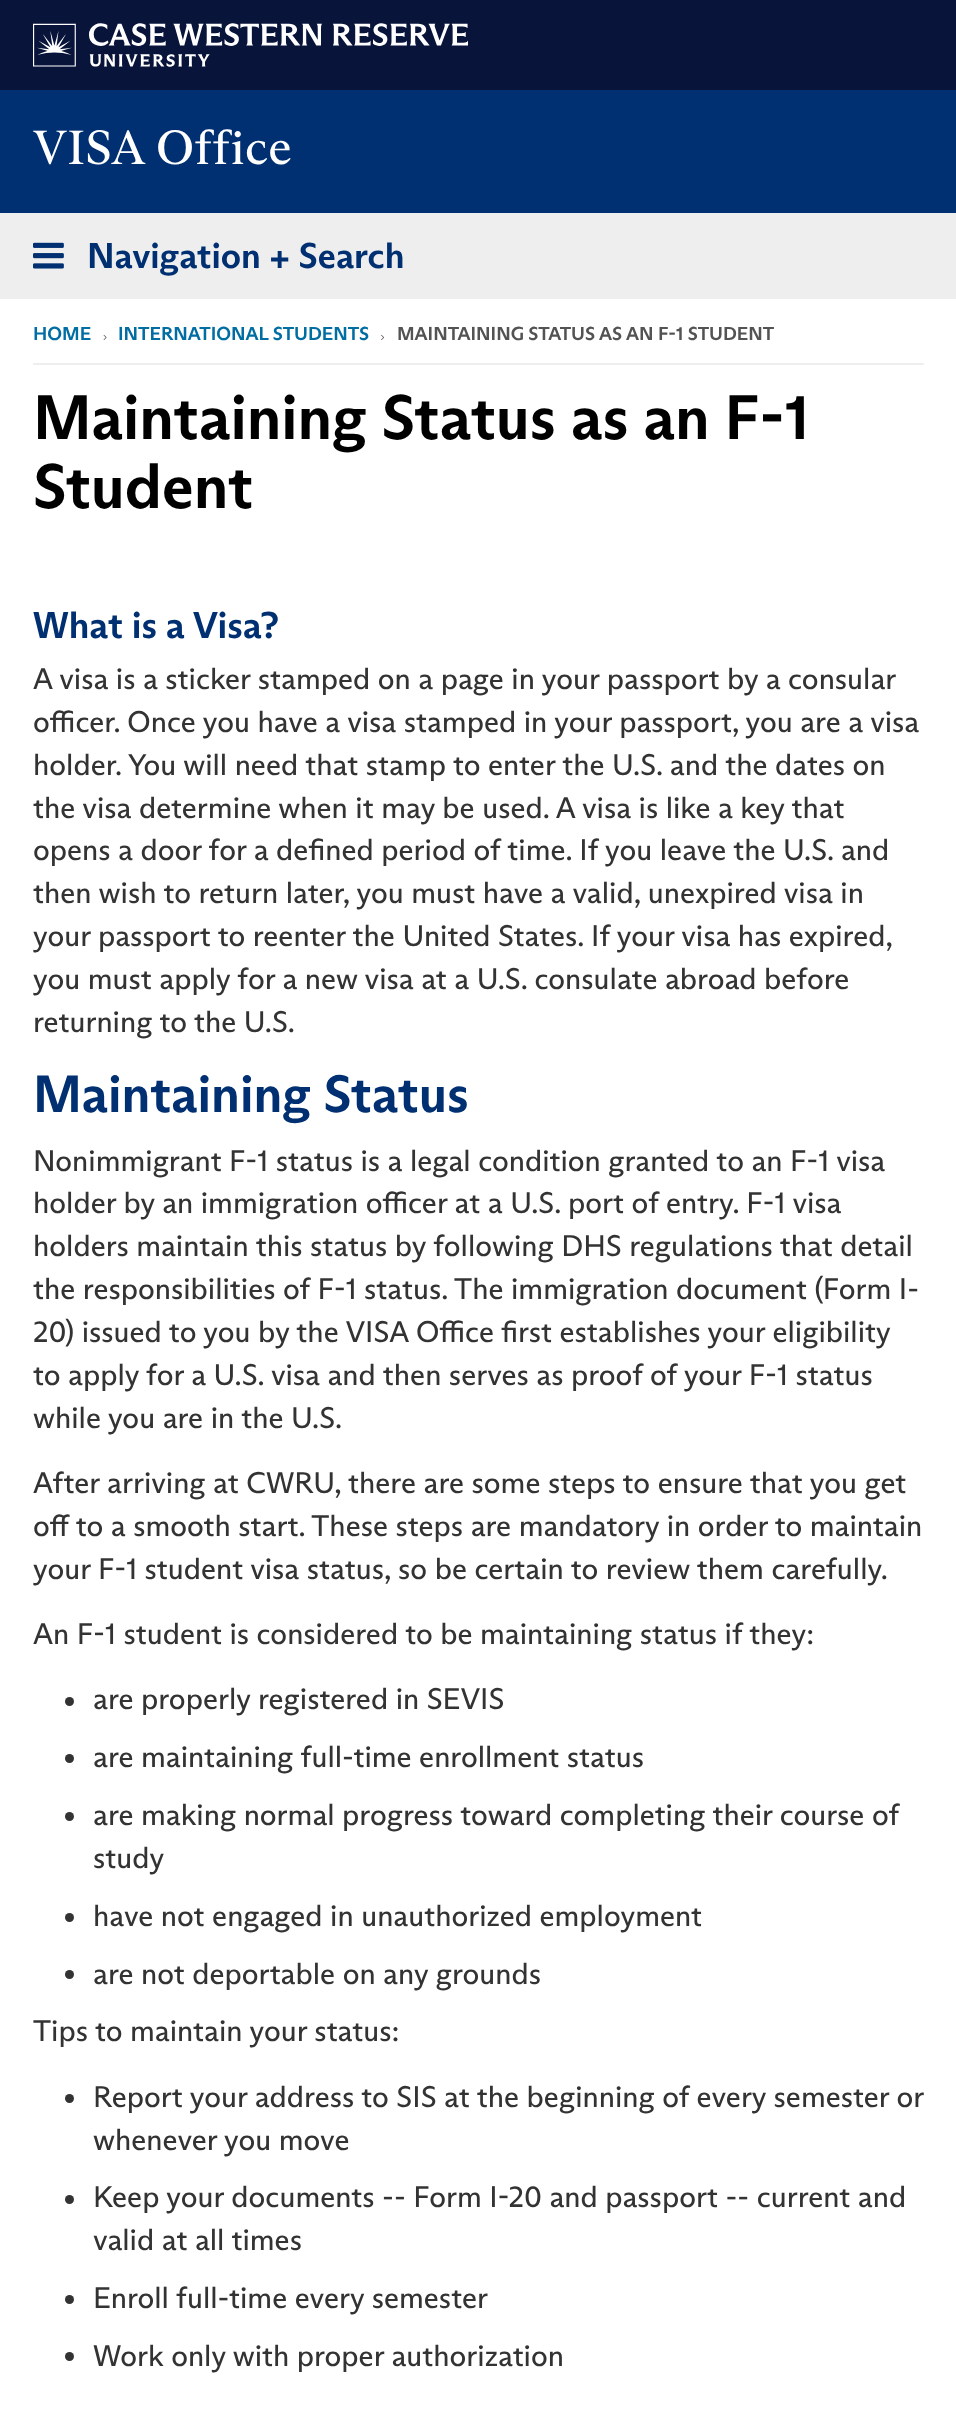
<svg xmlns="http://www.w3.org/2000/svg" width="956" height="2415">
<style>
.a{font:48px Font;letter-spacing:0.5px;fill:#fff}
.b{font:bold 36px Font;fill:#003071}
.c{font:bold 18.9px Font;fill:#006da3}
.d{font:bold 18.9px Font;fill:#535353}
.e{font:bold 63px Font;fill:#000}
.f{font:bold 37.5px Font;fill:#003071}
.g{font:30px 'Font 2';fill:#333}
.h{font:bold 52.5px Font;fill:#003071}
</style>
<rect width="100%" height="100%" fill="#09143a"/>
<image href="1.png" x="33" y="23" width="435" height="44"/>
<path fill="#003071" d="M0 90h956v123H0z"/>
<path fill="#eee" d="M0 213h956v86H0z"/>
<image href="2.png" x="33" y="242" width="31" height="27"/>
<path fill="#fff" d="M0 299h956v2116H0z"/>
<path fill="#eee" d="M33 363h891v2H33z"/>
<image href="3.png" x="103" y="334" width="4" height="6"/>
<image href="4.png" x="381" y="334" width="4" height="6"/>
<circle fill="#333" cx="69.5" cy="1701.5" r="4.5"/>
<circle fill="#333" cx="69.5" cy="1758.5" r="4.5"/>
<circle fill="#333" cx="69.5" cy="1816.5" r="4.5"/>
<circle fill="#333" cx="69.5" cy="1917.5" r="4.5"/>
<circle fill="#333" cx="69.5" cy="1974.5" r="4.5"/>
<circle fill="#333" cx="69.5" cy="2098.5" r="4.5"/>
<circle fill="#333" cx="69.5" cy="2199.5" r="4.5"/>
<circle fill="#333" cx="69.5" cy="2299.5" r="4.5"/>
<circle fill="#333" cx="69.5" cy="2356.5" r="4.5"/>
<text class="a" x="33" y="164">VISA Office</text>
<text class="b" x="87" y="268">Navigation + Search</text>
<text class="c" x="33" y="340">HOME</text>
<text class="c" x="118" y="340">INTERNATIONAL STUDENTS</text>
<text class="d" x="397" y="340">MAINTAINING STATUS AS AN F-1 STUDENT</text>
<text class="e" x="33" y="439">Maintaining Status as an F-1</text>
<text class="e" x="33" y="508">Student</text>
<text class="f" x="33" y="638">What is a Visa?</text>
<text class="g" x="33" y="689">A visa is a sticker stamped on a page in your passport by a consular</text>
<text class="g" x="33" y="732">officer. Once you have a visa stamped in your passport, you are a visa</text>
<text class="g" x="33" y="775">holder. You will need that stamp to enter the U.S. and the dates on</text>
<text class="g" x="33" y="818">the visa determine when it may be used. A visa is like a key that</text>
<text class="g" x="33" y="860">opens a door for a defined period of time. If you leave the U.S. and</text>
<text class="g" x="33" y="903">then wish to return later, you must have a valid, unexpired visa in</text>
<text class="g" x="33" y="946">your passport to reenter the United States. If your visa has expired,</text>
<text class="g" x="33" y="989">you must apply for a new visa at a U.S. consulate abroad before</text>
<text class="g" x="33" y="1032">returning to the U.S.</text>
<text class="h" x="33" y="1112">Maintaining Status</text>
<text class="g" x="33" y="1171">Nonimmigrant F-1 status is a legal condition granted to an F-1 visa</text>
<text class="g" x="33" y="1213">holder by an immigration officer at a U.S. port of entry. F-1 visa</text>
<text class="g" x="33" y="1256">holders maintain this status by following DHS regulations that detail</text>
<text class="g" x="33" y="1299">the responsibilities of F-1 status. The immigration document (Form I-</text>
<text class="g" x="33" y="1342">20) issued to you by the VISA Office first establishes your eligibility</text>
<text class="g" x="33" y="1385">to apply for a U.S. visa and then serves as proof of your F-1 status</text>
<text class="g" x="33" y="1428">while you are in the U.S.</text>
<text class="g" x="33" y="1493">After arriving at CWRU, there are some steps to ensure that you get</text>
<text class="g" x="33" y="1536">off to a smooth start. These steps are mandatory in order to maintain</text>
<text class="g" x="33" y="1579">your F-1 student visa status, so be certain to review them carefully.</text>
<text class="g" x="33" y="1644">An F-1 student is considered to be maintaining status if they:</text>
<text class="g" x="93" y="1709">are properly registered in SEVIS</text>
<text class="g" x="93" y="1767">are maintaining full-time enrollment status</text>
<text class="g" x="93" y="1825">are making normal progress toward completing their course of</text>
<text class="g" x="93" y="1868">study</text>
<text class="g" x="93" y="1926">have not engaged in unauthorized employment</text>
<text class="g" x="93" y="1984">are not deportable on any grounds</text>
<text class="g" x="33" y="2041">Tips to maintain your status:</text>
<text class="g" x="93" y="2107">Report your address to SIS at the beginning of every semester or</text>
<text class="g" x="93" y="2150">whenever you move</text>
<text class="g" x="93" y="2207">Keep your documents -- Form I-20 and passport -- current and</text>
<text class="g" x="93" y="2250">valid at all times</text>
<text class="g" x="93" y="2308">Enroll full-time every semester</text>
<text class="g" x="93" y="2366">Work only with proper authorization</text>
</svg>
